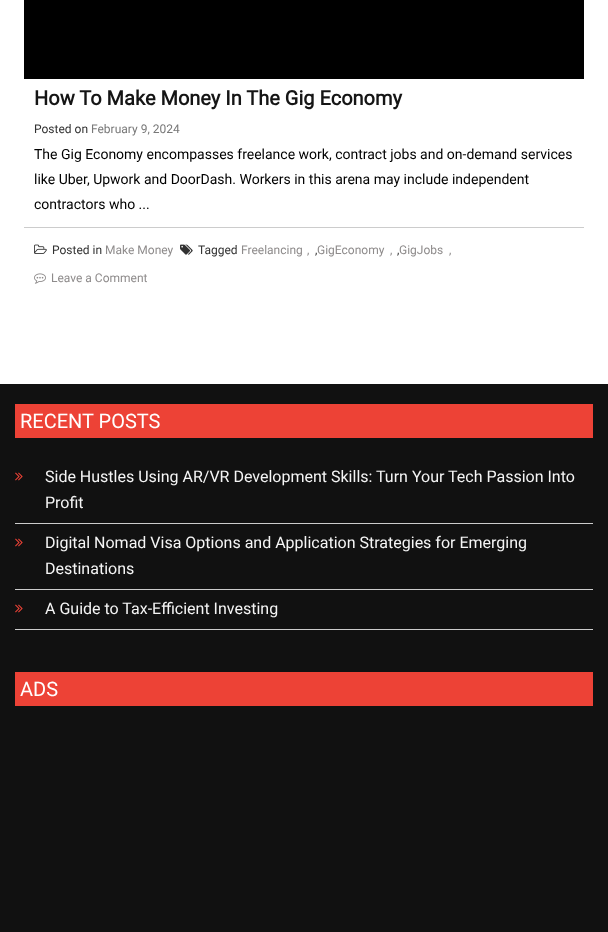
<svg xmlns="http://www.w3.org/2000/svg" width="608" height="932">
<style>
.a{font:bold 20px Roboto;fill:#151515}
.b{font:12px Roboto;fill:#313131}
.c{font:12px Roboto;fill:#787878}
.d{font:14px Roboto;fill:#000}
.e{font:12px Roboto;fill:#8e8b8b}
.f{font:20px Roboto;fill:#fff}
.g{font:16px Roboto;fill:#f5f5f5}
</style>
<rect width="100%" height="100%" fill="#fff"/>
<path fill="#000" d="M24 0h560v79H24z"/>
<path fill="#ccc" d="M24 227h560v1H24z"/>
<image href="1.png" x="34" y="244" width="13" height="10"/>
<image href="2.png" x="180" y="244" width="13" height="11"/>
<image href="3.png" x="34" y="273" width="12" height="11"/>
<path fill="#111" d="M0 384h608v548H0z"/>
<path fill="#ed4236" d="M15 404h578v34H15z"/>
<path fill="#ccc" d="M15 523h578v1H15z"/>
<image href="4.png" x="15" y="472" width="8" height="9"/>
<path fill="#ccc" d="M15 589h578v1H15z"/>
<image href="4.png" x="15" y="538" width="8" height="9"/>
<path fill="#ccc" d="M15 629h578v1H15z"/>
<image href="4.png" x="15" y="604" width="8" height="9"/>
<path fill="#ed4236" d="M15 672h578v34H15z"/>
<text class="a" x="34" y="105">How To Make Money In The Gig Economy</text>
<text class="b" x="34" y="133">Posted on</text>
<text class="c" x="91" y="133">February 9, 2024</text>
<text class="d" x="34" y="159">The Gig Economy encompasses freelance work, contract jobs and on-demand services</text>
<text class="d" x="34" y="184">like Uber, Upwork and DoorDash. Workers in this arena may include independent</text>
<text class="d" x="34" y="209">contractors who ...</text>
<text class="b" x="52" y="254">Posted in</text>
<text class="e" x="105" y="254">Make Money</text>
<text class="b" x="198" y="254">Tagged</text>
<text class="e" x="241" y="254">Freelancing</text>
<text class="e" x="307" y="254">,</text>
<text class="b" x="315" y="254">,</text>
<text class="e" x="317" y="254">GigEconomy</text>
<text class="e" x="390" y="254">,</text>
<text class="b" x="397" y="254">,</text>
<text class="e" x="399" y="254">GigJobs</text>
<text class="e" x="449" y="254">,</text>
<text class="e" x="51" y="282">Leave a Comment</text>
<text class="f" x="20" y="428">RECENT POSTS</text>
<text class="g" x="45" y="482">Side Hustles Using AR/VR Development Skills: Turn Your Tech Passion Into</text>
<text class="g" x="45" y="508">Profit</text>
<text class="g" x="45" y="548">Digital Nomad Visa Options and Application Strategies for Emerging</text>
<text class="g" x="45" y="574">Destinations</text>
<text class="g" x="45" y="614">A Guide to Tax-Efficient Investing</text>
<text class="f" x="20" y="696">ADS</text>
</svg>
